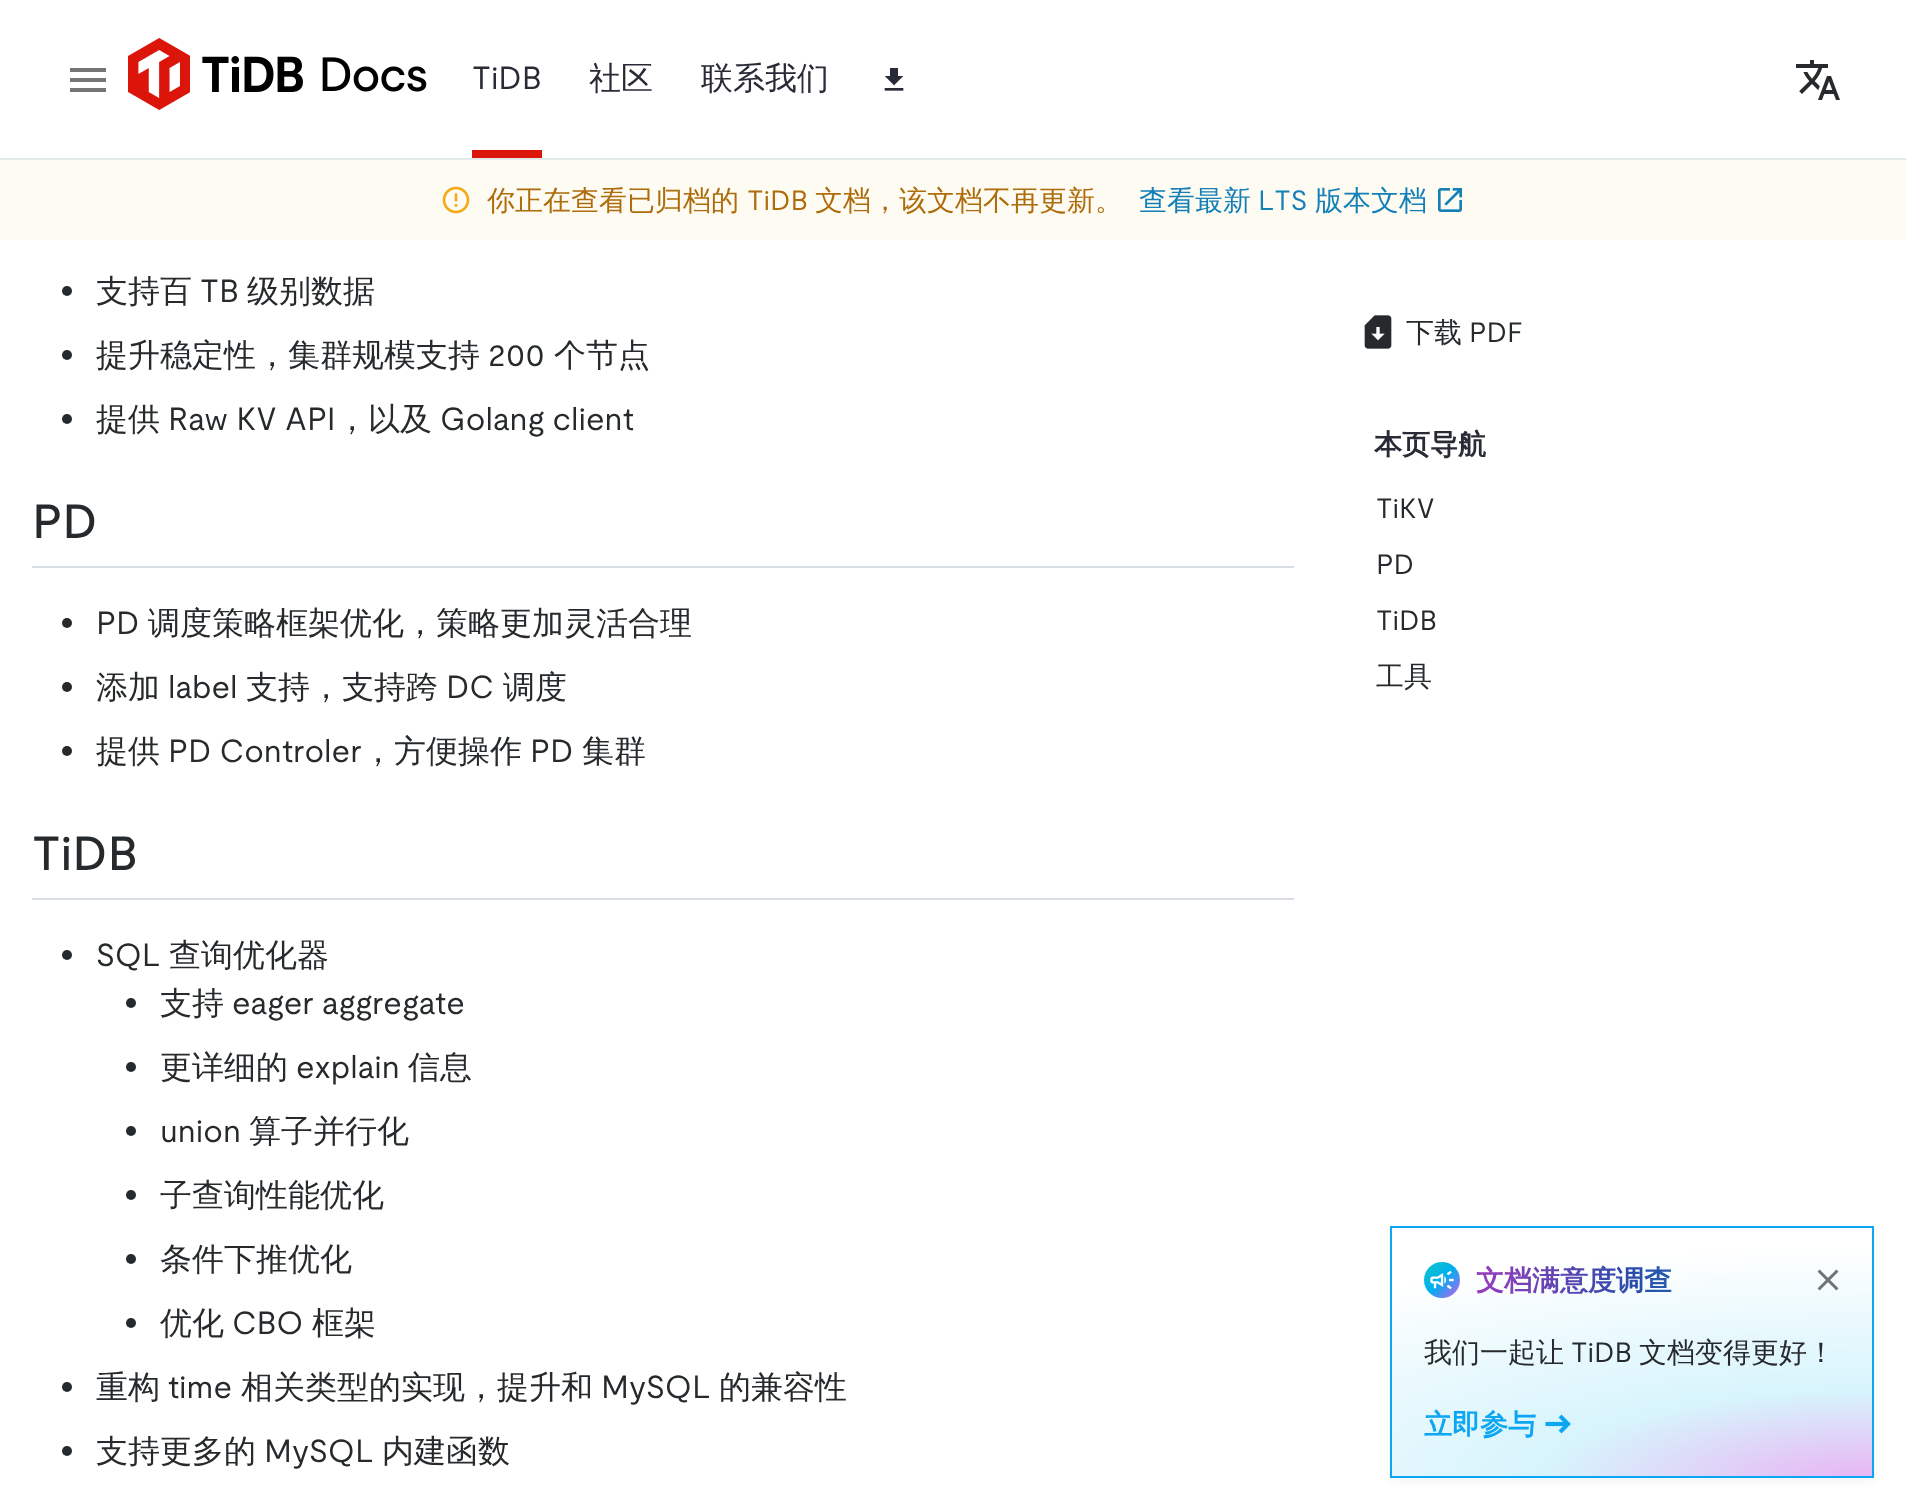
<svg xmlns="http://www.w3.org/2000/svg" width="1906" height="1509">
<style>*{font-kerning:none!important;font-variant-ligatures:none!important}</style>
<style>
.a{font:32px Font;fill:#282a36}
.b{font:500 32px WenQuanYi Zen Hei;fill:#282a36}
.c{font:500 28px WenQuanYi Zen Hei;fill:#ae6d0c}
.d{font:28px Font;fill:#ae6d0c}
.e{font:500 28px WenQuanYi Zen Hei;fill:#1480b8}
.f{font:28px Font;fill:#1480b8}
.g{font:500 32px WenQuanYi Zen Hei;fill:#262a2c}
.h{font:32px Font;fill:#262a2c}
.i{font:500 48px Font;fill:#262a2c}
.j{font:500 28px WenQuanYi Zen Hei;fill:#262a2c}
.k{font:28px Font;fill:#262a2c}
.l{font:bold 28px WenQuanYi Zen Hei;fill:#282a36}
.m{font:bold 28px WenQuanYi Zen Hei;fill:url(#g1)}
.n{font:bold 28px WenQuanYi Zen Hei;fill:#0ca6f2}
</style>
<defs>
<linearGradient id="g1" gradientUnits="userSpaceOnUse" x1="1476" y1="1280" x2="1800" y2="1280"><stop offset="0" stop-color="#9a3cbb"/><stop offset="0.5" stop-color="#284dab"/><stop offset="1" stop-color="#2d9bb7"/></linearGradient>
<radialGradient id="g2" gradientUnits="userSpaceOnUse" cx="0" cy="0" r="1" gradientTransform="matrix(869 0 0 240 1880 1484)"><stop offset="0" stop-color="#e9b0f3"/><stop offset="0.39" stop-color="#d7f4fc"/><stop offset="1" stop-color="#fff"/></radialGradient>
<linearGradient id="g3" gradientUnits="userSpaceOnUse" x1="1424" y1="1262" x2="1460" y2="1298"><stop offset="0" stop-color="#0fc7c7"/><stop offset="0.5" stop-color="#00aeef"/><stop offset="1" stop-color="#ca5af0"/></linearGradient>
</defs>
<rect width="100%" height="100%" fill="#fff"/>
<path fill="#e3e8ea" d="M0 158h1906v2H0z"/>
<path fill="#757575" d="M70 92h36v-4h-36zm0-10h36v-4h-36zm0-14v4h36v-4z"/>
<image href="1.png" x="128" y="38" width="299" height="72"/>
<path fill="#dc150b" d="M472 150h70v8H472z"/>
<image href="2.png" x="884" y="68" width="20" height="23"/>
<image href="3.png" x="1796" y="60" width="44" height="40"/>
<path fill="#fefbf3" d="M0 160h1906v80H0z"/>
<image href="4.png" x="442" y="186" width="28" height="28"/>
<image href="5.png" x="1438" y="188" width="24" height="24"/>
<circle fill="#262a2c" cx="67" cy="291" r="5"/>
<circle fill="#262a2c" cx="67" cy="355" r="5"/>
<circle fill="#262a2c" cx="67" cy="419" r="5"/>
<path fill="#d8dee4" d="M32 566h1262v2H32z"/>
<circle fill="#262a2c" cx="67" cy="623" r="5"/>
<circle fill="#262a2c" cx="67" cy="687" r="5"/>
<circle fill="#262a2c" cx="67" cy="751" r="5"/>
<path fill="#d8dee4" d="M32 898h1262v2H32z"/>
<circle fill="#262a2c" cx="67" cy="955" r="5"/>
<circle fill="#262a2c" cx="131" cy="1003" r="5"/>
<circle fill="#262a2c" cx="131" cy="1067" r="5"/>
<circle fill="#262a2c" cx="131" cy="1131" r="5"/>
<circle fill="#262a2c" cx="131" cy="1195" r="5"/>
<circle fill="#262a2c" cx="131" cy="1259" r="5"/>
<circle fill="#262a2c" cx="131" cy="1323" r="5"/>
<circle fill="#262a2c" cx="67" cy="1387" r="5"/>
<circle fill="#262a2c" cx="67" cy="1451" r="5"/>
<image href="6.png" x="1364" y="315" width="28" height="34"/>
<path fill="#0000000a" filter="blur(4px)" d="M1390 1230h484v252H1390z"/>
<path fill="url(#g2)" d="M1392 1228h480v248H1392z"/>
<path fill="none" stroke="#0ca6f2" stroke-width="2" d="M1391 1227h482v250H1391z"/>
<circle fill="url(#g3)" cx="1442" cy="1280" r="18"/>
<image href="7.png" x="1430" y="1270" width="24" height="20"/>
<image href="8.png" x="1817" y="1269" width="22" height="22"/>
<image href="9.png" x="1545" y="1414" width="26" height="20"/>
<text class="a" x="472" y="89">TiDB</text>
<text class="b" x="589" y="89">社区</text>
<text class="b" x="701" y="89">联系我们</text>
<text class="c" x="487" y="210">你正在查看已归档的</text>
<text class="d" x="747" y="210">TiDB</text>
<text class="c" x="815" y="210">文档，该文档不再更新。</text>
<text class="e" x="1139" y="210">查看最新</text>
<text class="f" x="1258" y="210">LTS</text>
<text class="e" x="1315" y="210">版本文档</text>
<text class="g" x="96" y="302">支持百</text>
<text class="h" x="200" y="302">TB</text>
<text class="g" x="247" y="302">级别数据</text>
<text class="g" x="96" y="366">提升稳定性，集群规模支持</text>
<text class="h" x="488" y="366">200</text>
<text class="g" x="554" y="366">个节点</text>
<text class="g" x="96" y="430">提供</text>
<text class="h" x="168" y="430">Raw KV API</text>
<text class="g" x="336" y="430">，以及</text>
<text class="h" x="440" y="430">Golang client</text>
<text class="i" x="32" y="538">PD</text>
<text class="h" x="96" y="634">PD</text>
<text class="g" x="148" y="634">调度策略框架优化，策略更加灵活合理</text>
<text class="g" x="96" y="698">添加</text>
<text class="h" x="168" y="698">label</text>
<text class="g" x="246" y="698">支持，支持跨</text>
<text class="h" x="446" y="698">DC</text>
<text class="g" x="503" y="698">调度</text>
<text class="g" x="96" y="762">提供</text>
<text class="h" x="168" y="762">PD Controler</text>
<text class="g" x="362" y="762">，方便操作</text>
<text class="h" x="530" y="762">PD</text>
<text class="g" x="582" y="762">集群</text>
<text class="i" x="32" y="870">TiDB</text>
<text class="h" x="96" y="966">SQL</text>
<text class="g" x="169" y="966">查询优化器</text>
<text class="g" x="160" y="1014">支持</text>
<text class="h" x="232" y="1014">eager aggregate</text>
<text class="g" x="160" y="1078">更详细的</text>
<text class="h" x="296" y="1078">explain</text>
<text class="g" x="408" y="1078">信息</text>
<text class="h" x="160" y="1142">union</text>
<text class="g" x="249" y="1142">算子并行化</text>
<text class="g" x="160" y="1206">子查询性能优化</text>
<text class="g" x="160" y="1270">条件下推优化</text>
<text class="g" x="160" y="1334">优化</text>
<text class="h" x="232" y="1334">CBO</text>
<text class="g" x="312" y="1334">框架</text>
<text class="g" x="96" y="1398">重构</text>
<text class="h" x="168" y="1398">time</text>
<text class="g" x="241" y="1398">相关类型的实现，提升和</text>
<text class="h" x="601" y="1398">MySQL</text>
<text class="g" x="719" y="1398">的兼容性</text>
<text class="g" x="96" y="1462">支持更多的</text>
<text class="h" x="264" y="1462">MySQL</text>
<text class="g" x="382" y="1462">内建函数</text>
<text class="j" x="1406" y="342">下载</text>
<text class="k" x="1469" y="342">PDF</text>
<text class="l" x="1374" y="454">本页导航</text>
<text class="k" x="1376" y="518">TiKV</text>
<text class="k" x="1376" y="574">PD</text>
<text class="k" x="1376" y="630">TiDB</text>
<text class="j" x="1376" y="686">工具</text>
<text class="m" x="1476" y="1290">文档满意度调查</text>
<text class="j" x="1424" y="1362">我们一起让</text>
<text class="k" x="1571" y="1362">TiDB</text>
<text class="j" x="1639" y="1362">文档变得更好！</text>
<text class="n" x="1424" y="1434">立即参与</text>
</svg>
